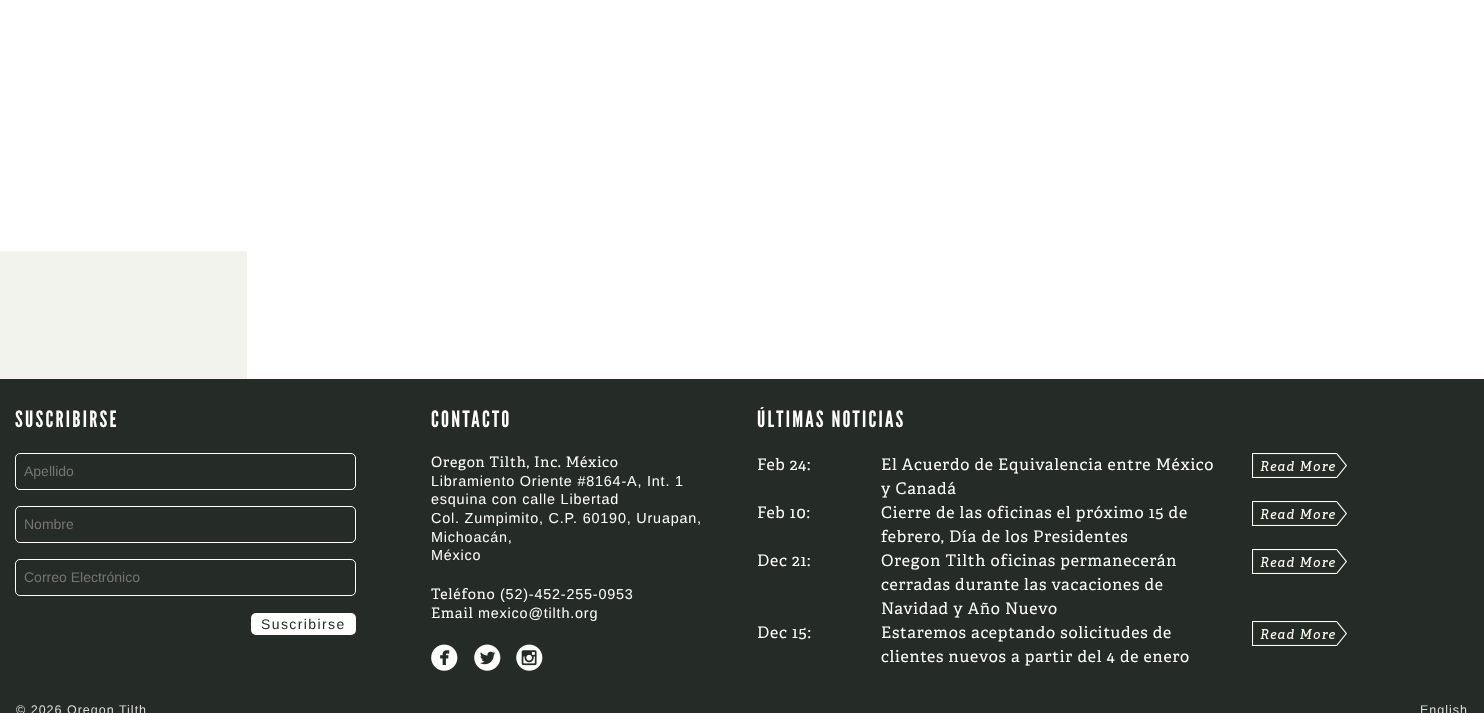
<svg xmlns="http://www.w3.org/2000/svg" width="1484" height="713">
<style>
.a{font:22.5px League Gothic;letter-spacing:2.25px;fill:#fff}
.b{font:14px Liberation Sans;fill:#757575}
.c{font:14px Liberation Sans;letter-spacing:1.4px;fill:#252b26}
.d{font:14.4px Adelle;letter-spacing:0.8px;fill:#fff}
.e{font:14.4px Liberation Sans;letter-spacing:0.8px;fill:#fff}
.f{font:16px Adelle;letter-spacing:0.8px;fill:#fff}
.g{font:12.5px Liberation Sans;letter-spacing:1px;fill:#ddd}
</style>
<rect width="100%" height="100%" fill="#fff"/>
<path fill="#f3f3ee" d="M0 251h247v128H0z"/>
<path fill="#252b26" d="M0 379h1484v334H0z"/>
<rect fill="none" stroke="#fff" x="15.5" y="453.5" width="340" height="36" rx="4.5"/>
<rect fill="none" stroke="#fff" x="15.5" y="506.5" width="340" height="36" rx="4.5"/>
<rect fill="none" stroke="#fff" x="15.5" y="559.5" width="340" height="36" rx="4.5"/>
<rect fill="#fff" x="251" y="613" width="105" height="22" rx="5"/>
<image href="1.png" x="431" y="644" width="27" height="27"/>
<image href="2.png" x="474" y="644" width="27" height="27"/>
<image href="3.png" x="516" y="644" width="27" height="27"/>
<image href="4.png" x="1252" y="453" width="95" height="25"/>
<image href="4.png" x="1252" y="501" width="95" height="25"/>
<image href="4.png" x="1252" y="549" width="95" height="25"/>
<image href="4.png" x="1252" y="621" width="95" height="25"/>
<text class="a" x="15" y="427">SUSCRIBIRSE</text>
<text class="b" x="24" y="476">Apellido</text>
<text class="b" x="24" y="529">Nombre</text>
<text class="b" x="24" y="582">Correo Electrónico</text>
<text class="c" x="261" y="629">Suscribirse</text>
<text class="a" x="431" y="427">CONTACTO</text>
<text class="d" x="431" y="467">Oregon Tilth, Inc. México</text>
<text class="e" x="431" y="486">Libramiento Oriente #8164-A, Int. 1</text>
<text class="e" x="431" y="504">esquina con calle Libertad</text>
<text class="e" x="431" y="523">Col. Zumpimito, C.P. 60190, Uruapan,</text>
<text class="e" x="431" y="542">Michoacán,</text>
<text class="e" x="431" y="560">México</text>
<text class="d" x="431" y="599">Teléfono</text>
<text class="e" x="500" y="599">(52)-452-255-0953</text>
<text class="d" x="431" y="618">Email</text>
<text class="e" x="478" y="618">mexico@tilth.org</text>
<text class="a" x="757" y="427">ÚLTIMAS NOTICIAS</text>
<text class="f" x="757" y="470">Feb 24:</text>
<text class="f" x="881" y="470">El Acuerdo de Equivalencia entre México</text>
<text class="f" x="881" y="494">y Canadá</text>
<text class="f" x="757" y="518">Feb 10:</text>
<text class="f" x="881" y="518">Cierre de las oficinas el próximo 15 de</text>
<text class="f" x="881" y="542">febrero, Día de los Presidentes</text>
<text class="f" x="757" y="566">Dec 21:</text>
<text class="f" x="881" y="566">Oregon Tilth oficinas permanecerán</text>
<text class="f" x="881" y="590">cerradas durante las vacaciones de</text>
<text class="f" x="881" y="614">Navidad y Año Nuevo</text>
<text class="f" x="757" y="638">Dec 15:</text>
<text class="f" x="881" y="638">Estaremos aceptando solicitudes de</text>
<text class="f" x="881" y="662">clientes nuevos a partir del 4 de enero</text>
<text class="g" x="16" y="714">© 2026 Oregon Tilth</text>
<text class="g" x="1420" y="714">English</text>
</svg>
